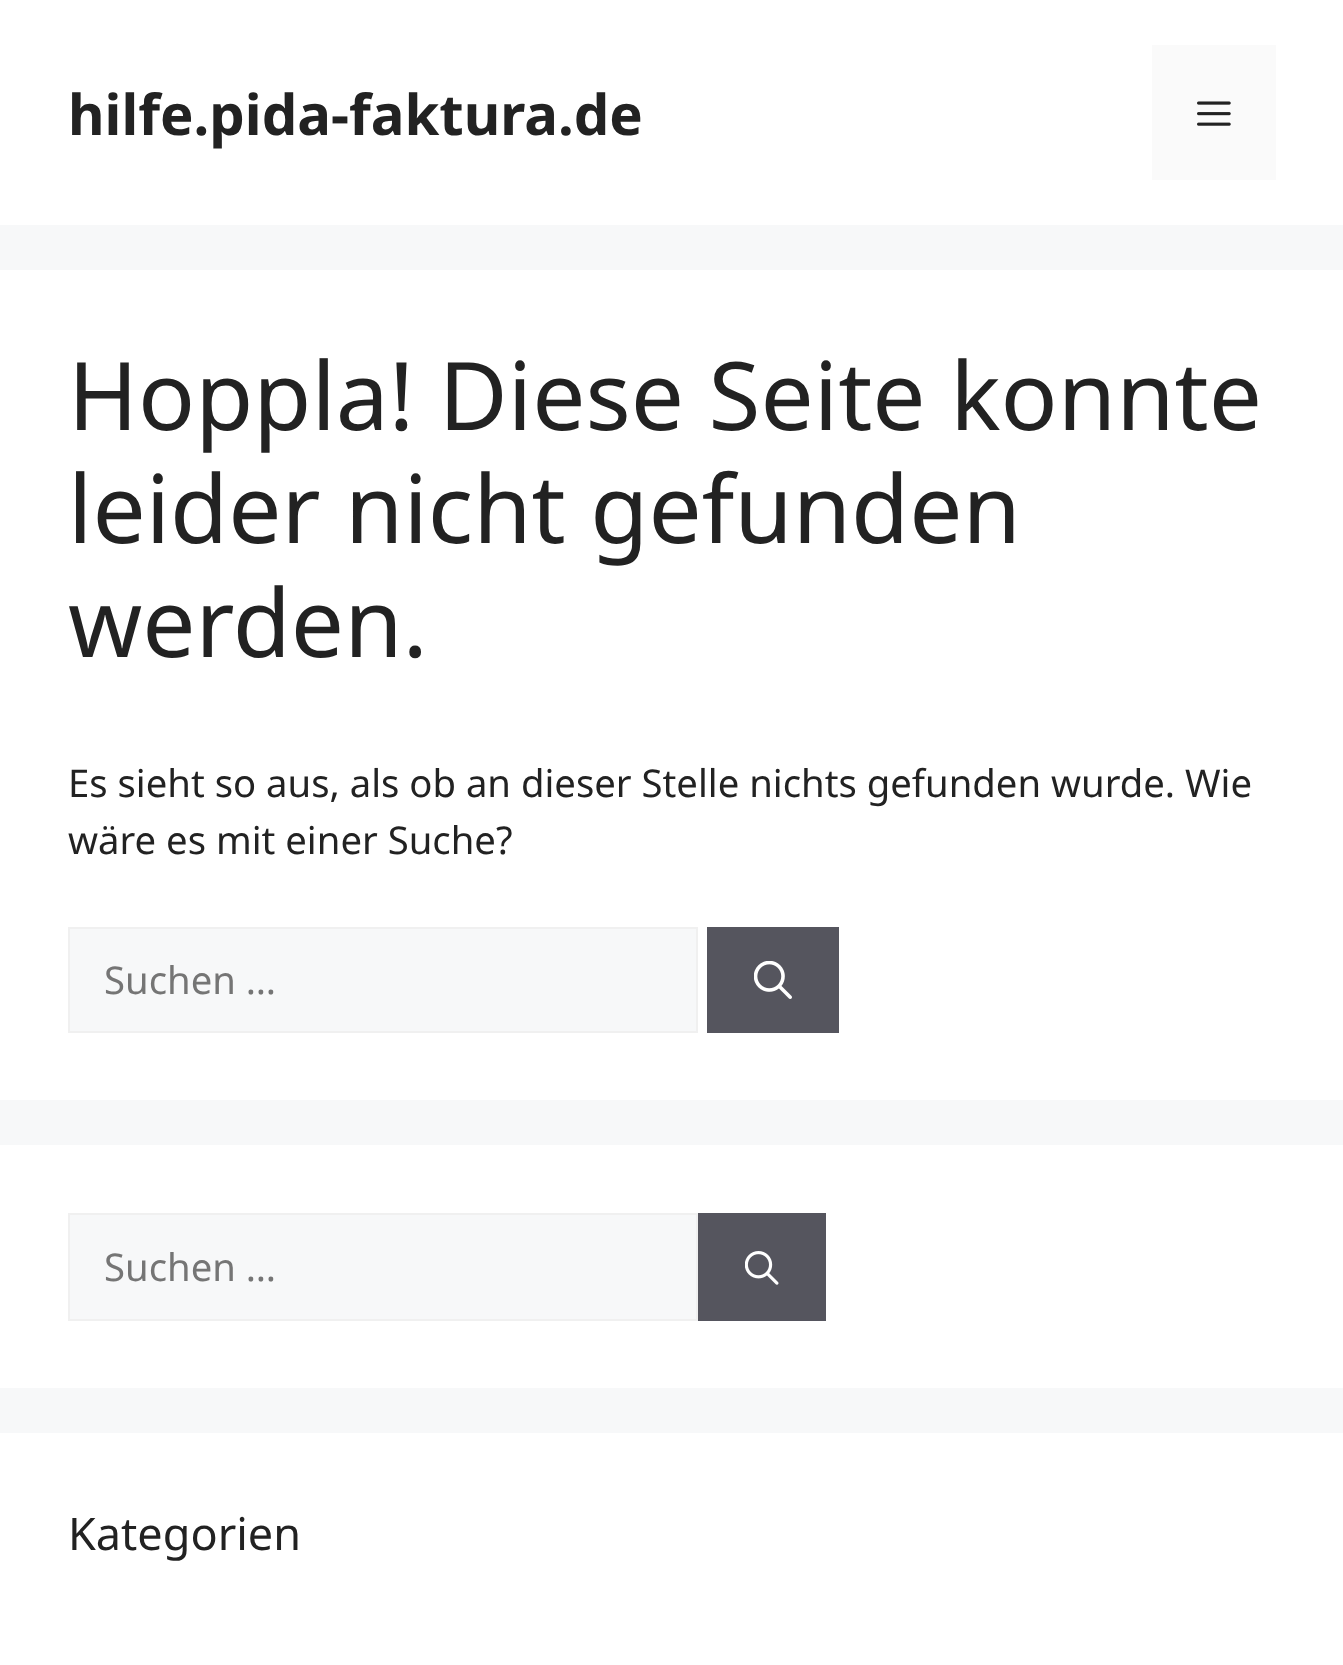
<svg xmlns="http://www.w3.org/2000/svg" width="1343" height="1665">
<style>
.a{font:bold 56.25px Noto Sans;fill:#222}
.b{font:94.5px Noto Sans;fill:#222}
.c{font:38.25px Noto Sans;fill:#222}
.d{font:38.25px Noto Sans;fill:#757575}
.e{font:45px Noto Sans;fill:#222}
</style>
<rect width="100%" height="100%" fill="#f7f8f9"/>
<path fill="#fff" d="M0 0h1343v225H0z"/>
<path fill="#fafafa" d="M1152 45h124v135H1152z"/>
<image href="1.png" x="1197" y="101" width="34" height="25"/>
<path fill="#fff" d="M0 270h1343v830H0z"/>
<path fill="#f7f8f9" stroke="#f0f0f0" stroke-width="2" d="M69 928h628v104H69z"/>
<path fill="#55555e" d="M707 927h132v106H707z"/>
<image href="2.png" x="754" y="961" width="38" height="38"/>
<path fill="#fff" d="M0 1145h1343v243H0z"/>
<path fill="#f7f8f9" stroke="#f0f0f0" stroke-width="2" d="M69 1214h628v106H69z"/>
<path fill="#55555e" d="M698 1213h128v108H698z"/>
<image href="3.png" x="745" y="1251" width="34" height="34"/>
<path fill="#fff" d="M0 1433h1343v232H0z"/>
<text class="a" x="68" y="135">hilfe.pida-faktura.de</text>
<text class="b" x="68" y="430">Hoppla! Diese Seite konnte</text>
<text class="b" x="68" y="543">leider nicht gefunden</text>
<text class="b" x="68" y="657">werden.</text>
<text class="c" x="68" y="797">Es sieht so aus, als ob an dieser Stelle nichts gefunden wurde. Wie</text>
<text class="c" x="68" y="854">wäre es mit einer Suche?</text>
<text class="d" x="104" y="994">Suchen …</text>
<text class="d" x="104" y="1281">Suchen …</text>
<text class="e" x="68" y="1550">Kategorien</text>
</svg>
